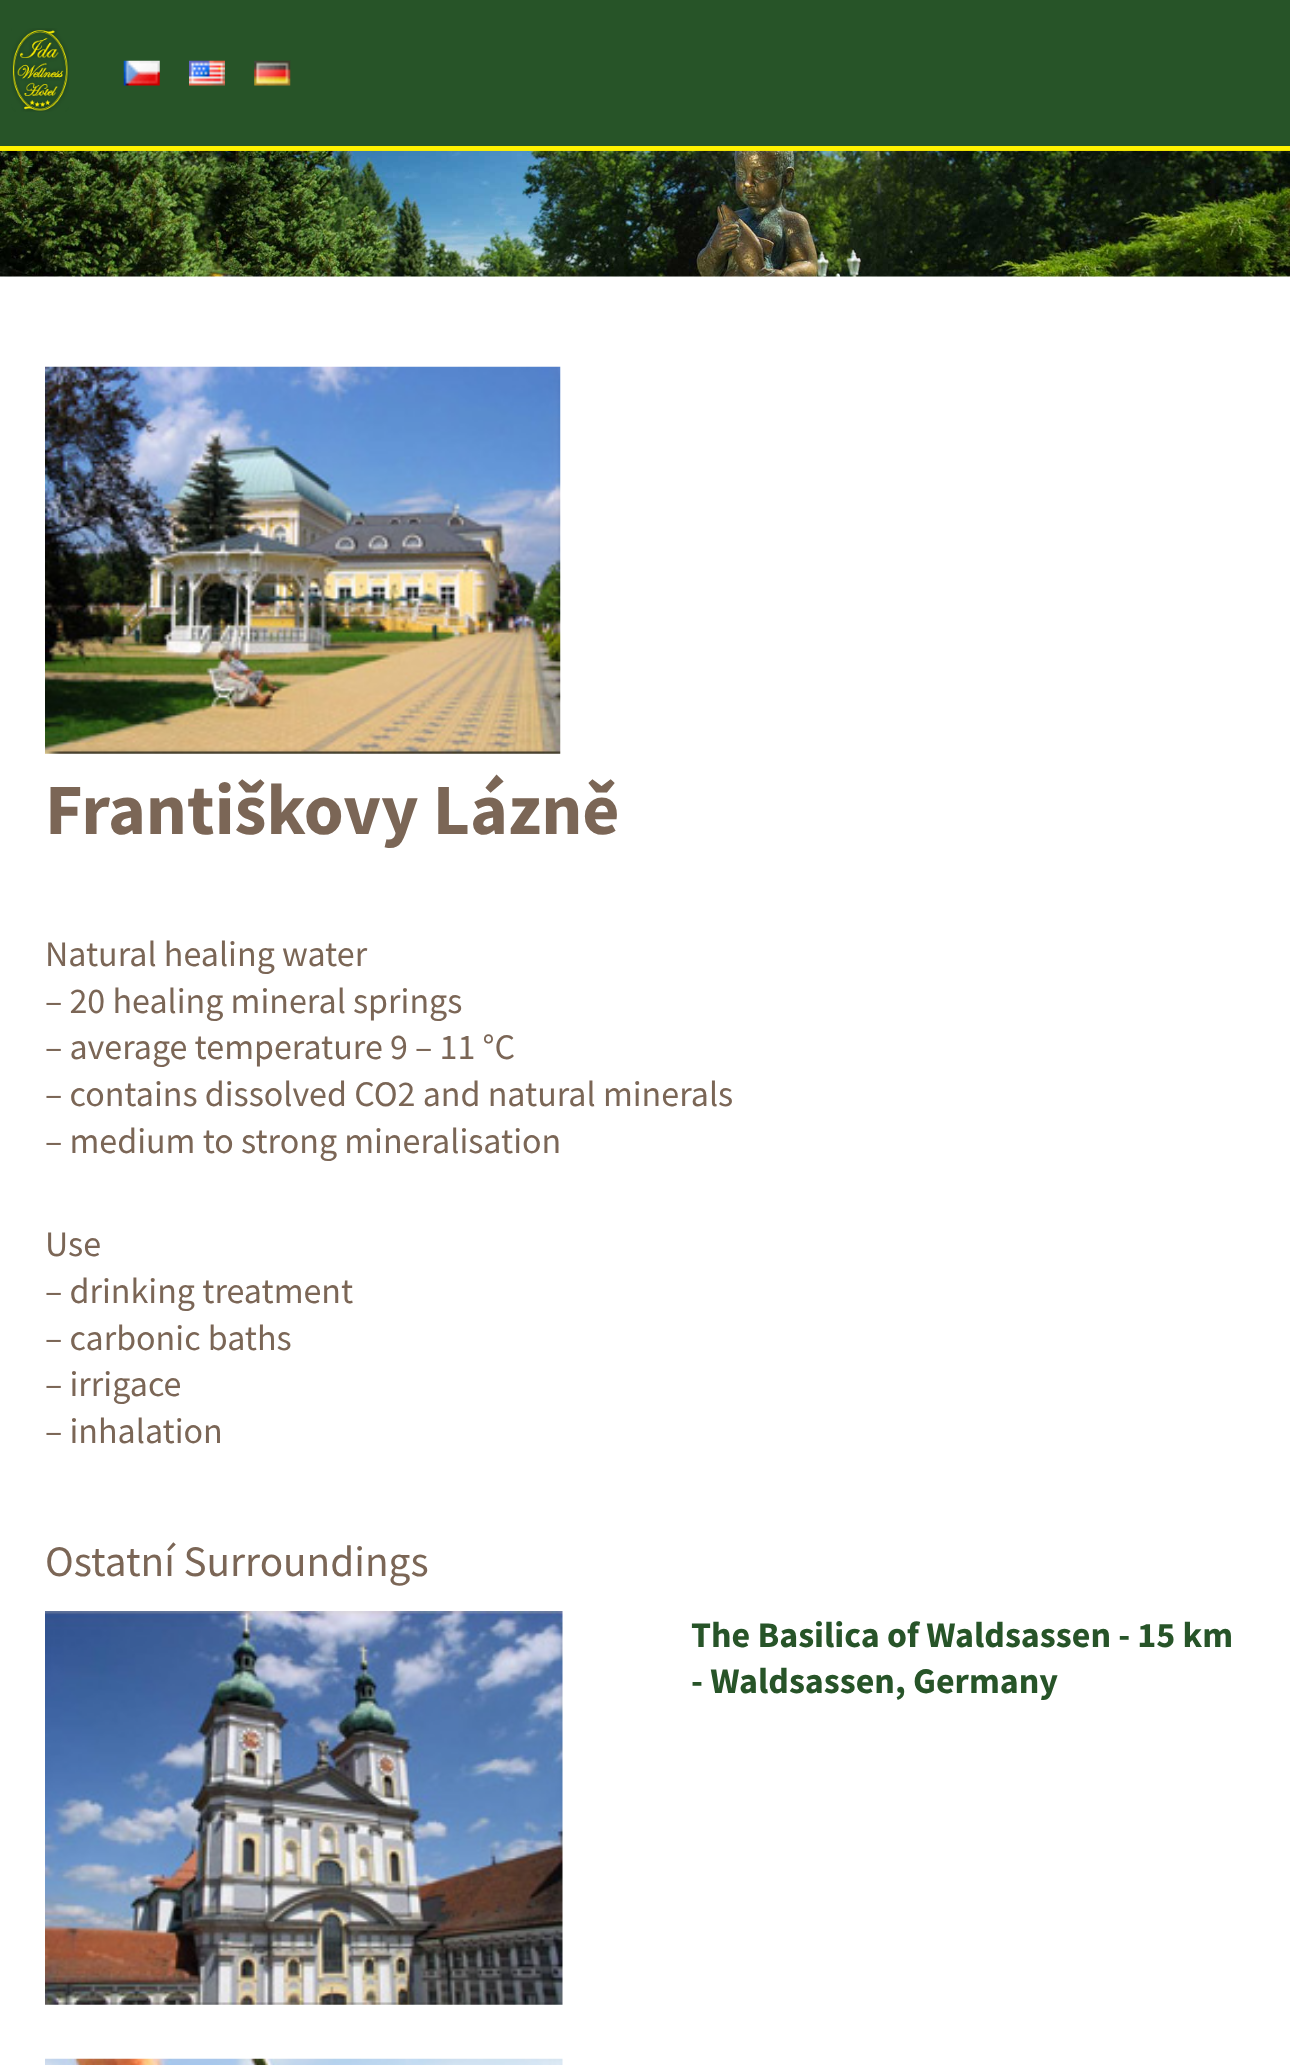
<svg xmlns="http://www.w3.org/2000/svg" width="1290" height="2065">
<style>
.a{font:bold 72px Source Sans Pro;fill:#7b6656}
.b{font:36px Source Sans Pro;fill:#7b6656}
.c{font:43.25px Source Sans Pro;fill:#7b6656}
.d{font:bold 36px Source Sans Pro;fill:#275428}
</style>
<rect width="100%" height="100%" fill="#fff"/>
<path fill="#275428" d="M0 0h1290v146H0z"/>
<path fill="#fff200" d="M0 146h1290v5H0z"/>
<image href="1.png" x="11" y="28" width="58" height="84"/>
<image href="2.png" x="123" y="60" width="37" height="26"/>
<image href="3.png" x="189" y="60" width="36" height="26"/>
<image href="4.png" x="254" y="60" width="37" height="26"/>
<image href="5.png" x="0" y="150" width="1290" height="127"/>
<image href="6.png" x="45" y="366" width="516" height="388"/>
<image href="7.png" x="45" y="1611" width="518" height="394"/>
<image href="8.png" x="45" y="2058" width="518" height="7"/>
<text class="a" x="45" y="834">Františkovy Lázně</text>
<text class="b" x="45" y="966">Natural healing water</text>
<text class="b" x="45" y="1013">– 20 healing mineral springs</text>
<text class="b" x="45" y="1059">– average temperature 9 – 11 °C</text>
<text class="b" x="45" y="1106">– contains dissolved CO2 and natural minerals</text>
<text class="b" x="45" y="1153">– medium to strong mineralisation</text>
<text class="b" x="45" y="1256">Use</text>
<text class="b" x="45" y="1303">– drinking treatment</text>
<text class="b" x="45" y="1350">– carbonic baths</text>
<text class="b" x="45" y="1396">– irrigace</text>
<text class="b" x="45" y="1443">– inhalation</text>
<text class="c" x="45" y="1576">Ostatní Surroundings</text>
<text class="d" x="691" y="1647">The Basilica of Waldsassen - 15 km</text>
<text class="d" x="691" y="1693">- Waldsassen, Germany</text>
</svg>
